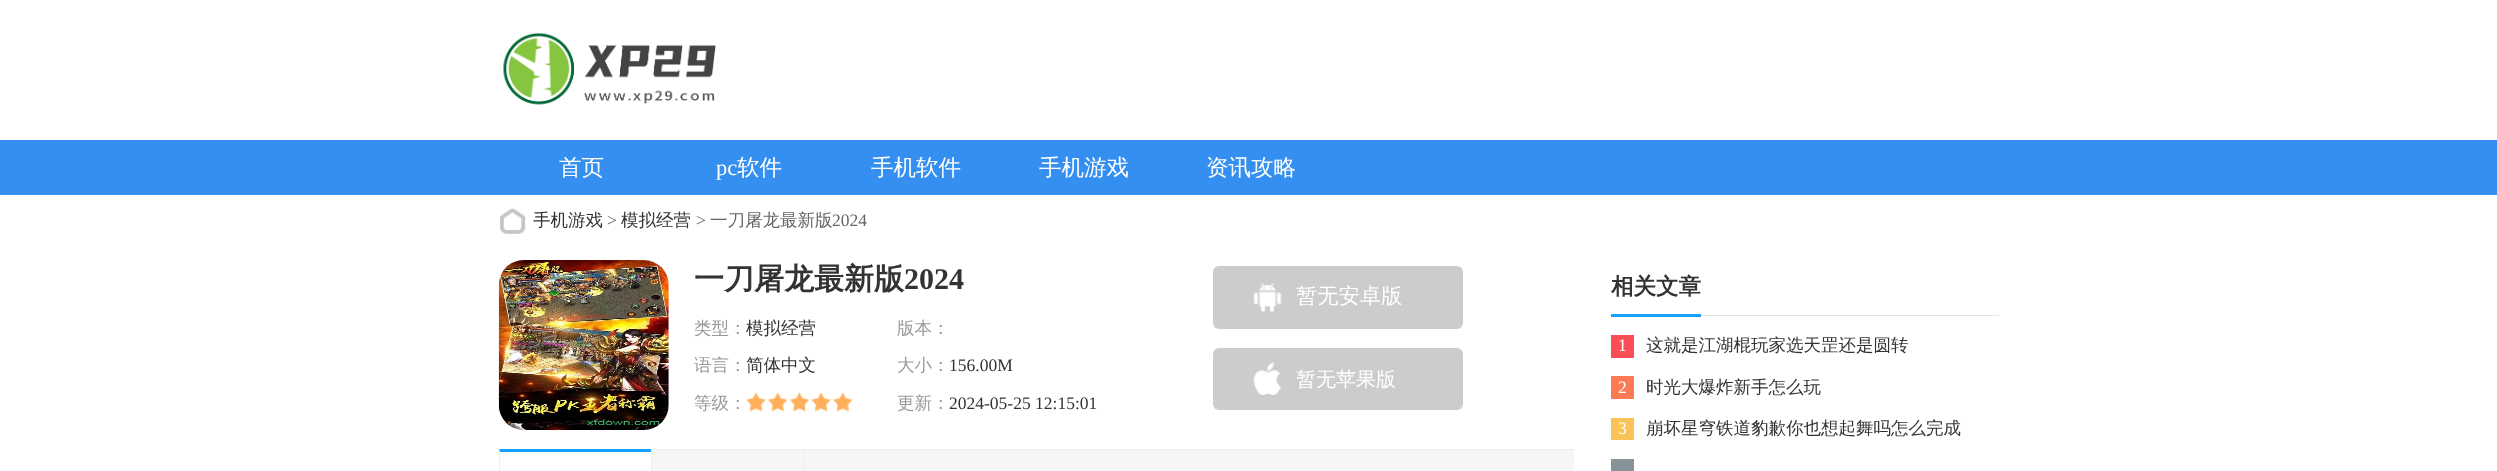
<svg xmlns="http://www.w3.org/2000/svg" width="2497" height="471">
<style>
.a{font:500 22.5px WenQuanYi Zen Hei;fill:#fff}
.b{font:22.5px Liberation Serif;fill:#fff}
.c{font:500 17.5px WenQuanYi Zen Hei;fill:#333}
.d{font:17.5px Liberation Serif;fill:#666}
.e{font:500 17.5px WenQuanYi Zen Hei;fill:#666}
.f{font:bold 30px WenQuanYi Zen Hei;fill:#333}
.g{font:bold 30px Liberation Serif;fill:#333}
.h{font:500 17.5px WenQuanYi Zen Hei;fill:#999}
.i{font:17.5px Liberation Serif;fill:#333}
.j{font:500 21.25px WenQuanYi Zen Hei;fill:#fff}
.k{font:500 20px WenQuanYi Zen Hei;fill:#fff}
.l{font:bold 22.5px WenQuanYi Zen Hei;fill:#333}
.m{font:17.5px Liberation Serif;fill:#fff}
</style>
<rect width="100%" height="100%" fill="#fff"/>
<image href="1.png" x="503" y="32" width="213" height="73"/>
<path fill="#358ff0" d="M0 140h2497v55H0z"/>
<image href="2.png" x="500" y="208" width="26" height="26"/>
<image href="3.png" x="498" y="260" width="171" height="170"/>
<image href="4.png" x="746" y="392" width="107" height="20"/>
<rect fill="#ccc" x="1213" y="266" width="250" height="63" rx="6"/>
<image href="5.png" x="1253" y="282" width="29" height="31"/>
<rect fill="#ccc" x="1213" y="348" width="250" height="62" rx="6"/>
<image href="6.png" x="1253" y="362" width="29" height="33"/>
<path fill="#f6f6f6" d="M652 450h922v21H652z"/>
<path fill="#eee" d="M651 449h923v1H651z"/>
<path fill="#17a1ff" d="M499 449h152v3h-151z"/>
<path fill="#eee" d="M499 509v-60l1 3v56z"/>
<path fill="#eee" d="M651 450h1v21H651z"/>
<path fill="#eee" d="M804 450h1v21H804z"/>
<path fill="#e3e3e3" d="M1701 315h298v1H1701z"/>
<path fill="#17a1ff" d="M1611 314h90v3H1611z"/>
<path fill="#fa4e57" d="M1611 335h23v23H1611z"/>
<path fill="#fa7a53" d="M1611 376h23v23H1611z"/>
<path fill="#fbc258" d="M1611 418h23v22H1611z"/>
<path fill="#879299" d="M1611 459h23v12H1611z"/>
<text class="a" x="559" y="175">首页</text>
<text class="b" x="716" y="175">pc</text>
<text class="a" x="737" y="175">软件</text>
<text class="a" x="871" y="175">手机软件</text>
<text class="a" x="1039" y="175">手机游戏</text>
<text class="a" x="1206" y="175">资讯攻略</text>
<text class="c" x="533" y="226">手机游戏</text>
<text class="d" x="607" y="226">&gt;</text>
<text class="c" x="621" y="226">模拟经营</text>
<text class="d" x="696" y="226">&gt;</text>
<text class="e" x="710" y="226">一刀屠龙最新版</text>
<text class="d" x="832" y="226">2024</text>
<text class="f" x="694" y="289">一刀屠龙最新版</text>
<text class="g" x="904" y="289">2024</text>
<text class="h" x="694" y="334">类型：</text>
<text class="c" x="746" y="334">模拟经营</text>
<text class="h" x="897" y="334">版本：</text>
<text class="h" x="694" y="371">语言：</text>
<text class="c" x="746" y="371">简体中文</text>
<text class="h" x="897" y="371">大小：</text>
<text class="i" x="949" y="371">156.00M</text>
<text class="h" x="694" y="409">等级：</text>
<text class="h" x="897" y="409">更新：</text>
<text class="i" x="949" y="409">2024-05-25 12:15:01</text>
<text class="j" x="1296" y="303">暂无安卓版</text>
<text class="k" x="1296" y="386">暂无苹果版</text>
<text class="l" x="1611" y="294">相关文章</text>
<text class="m" x="1618" y="351">1</text>
<text class="c" x="1646" y="351">这就是江湖棍玩家选天罡还是圆转</text>
<text class="m" x="1618" y="393">2</text>
<text class="c" x="1646" y="393">时光大爆炸新手怎么玩</text>
<text class="m" x="1618" y="434">3</text>
<text class="c" x="1646" y="434">崩坏星穹铁道豹歉你也想起舞吗怎么完成</text>
</svg>
